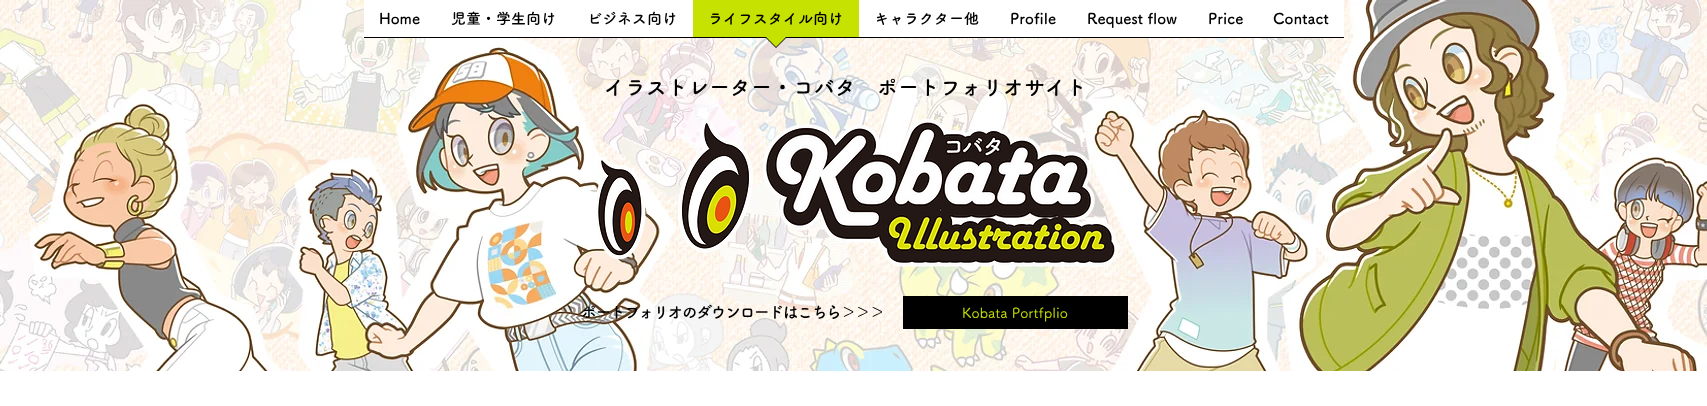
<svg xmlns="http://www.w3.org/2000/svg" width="1707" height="406">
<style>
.a{font:bold 15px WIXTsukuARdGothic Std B;fill:#000}
.b{font:bold 21px WIXTsukuARdGothic Std B;fill:#000}
.c{font:bold 16px WIXTsukuARdGothic Std B;letter-spacing:-1.6px;fill:#000}
.d{font:500 14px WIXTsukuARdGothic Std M;fill:#c6e200}
</style>
<rect width="100%" height="100%" fill="#fff"/>
<image href="1.png" x="0" y="0" width="1707" height="371"/>
<path fill="#fff" d="M364 0h980v37H364z"/>
<path fill="#000" d="M364 37h980v1H364z"/>
<path fill="#c6e200" d="M693 0h166v37H693z"/>
<path fill="#000" d="M765 37h22l-11 11z"/>
<path fill="#c6e200" d="M766 37h20l-10 10z"/>
<image href="2.png" x="596" y="119" width="157" height="141"/>
<image href="3.png" x="763" y="118" width="355" height="149"/>
<path fill="#000" d="M903 296h225v33H903z"/>
<text class="a" x="379" y="24">Home</text>
<text class="a" x="451" y="24">児童・学生向け</text>
<text class="a" x="587" y="24">ビジネス向け</text>
<text class="a" x="708" y="24">ライフスタイル向け</text>
<text class="a" x="874" y="24">キャラクター他</text>
<text class="a" x="1010" y="24">Profile</text>
<text class="a" x="1087" y="24">Request flow</text>
<text class="a" x="1208" y="24">Price</text>
<text class="a" x="1273" y="24">Contact</text>
<text class="b" x="604" y="95">イラストレーター・コバタ</text>
<text class="b" x="877" y="95">ポートフォリオサイト</text>
<text class="c" x="581" y="318">ポートフォリオのダウンロードはこちら＞＞＞</text>
<text class="d" x="962" y="318">Kobata Portfplio</text>
</svg>
